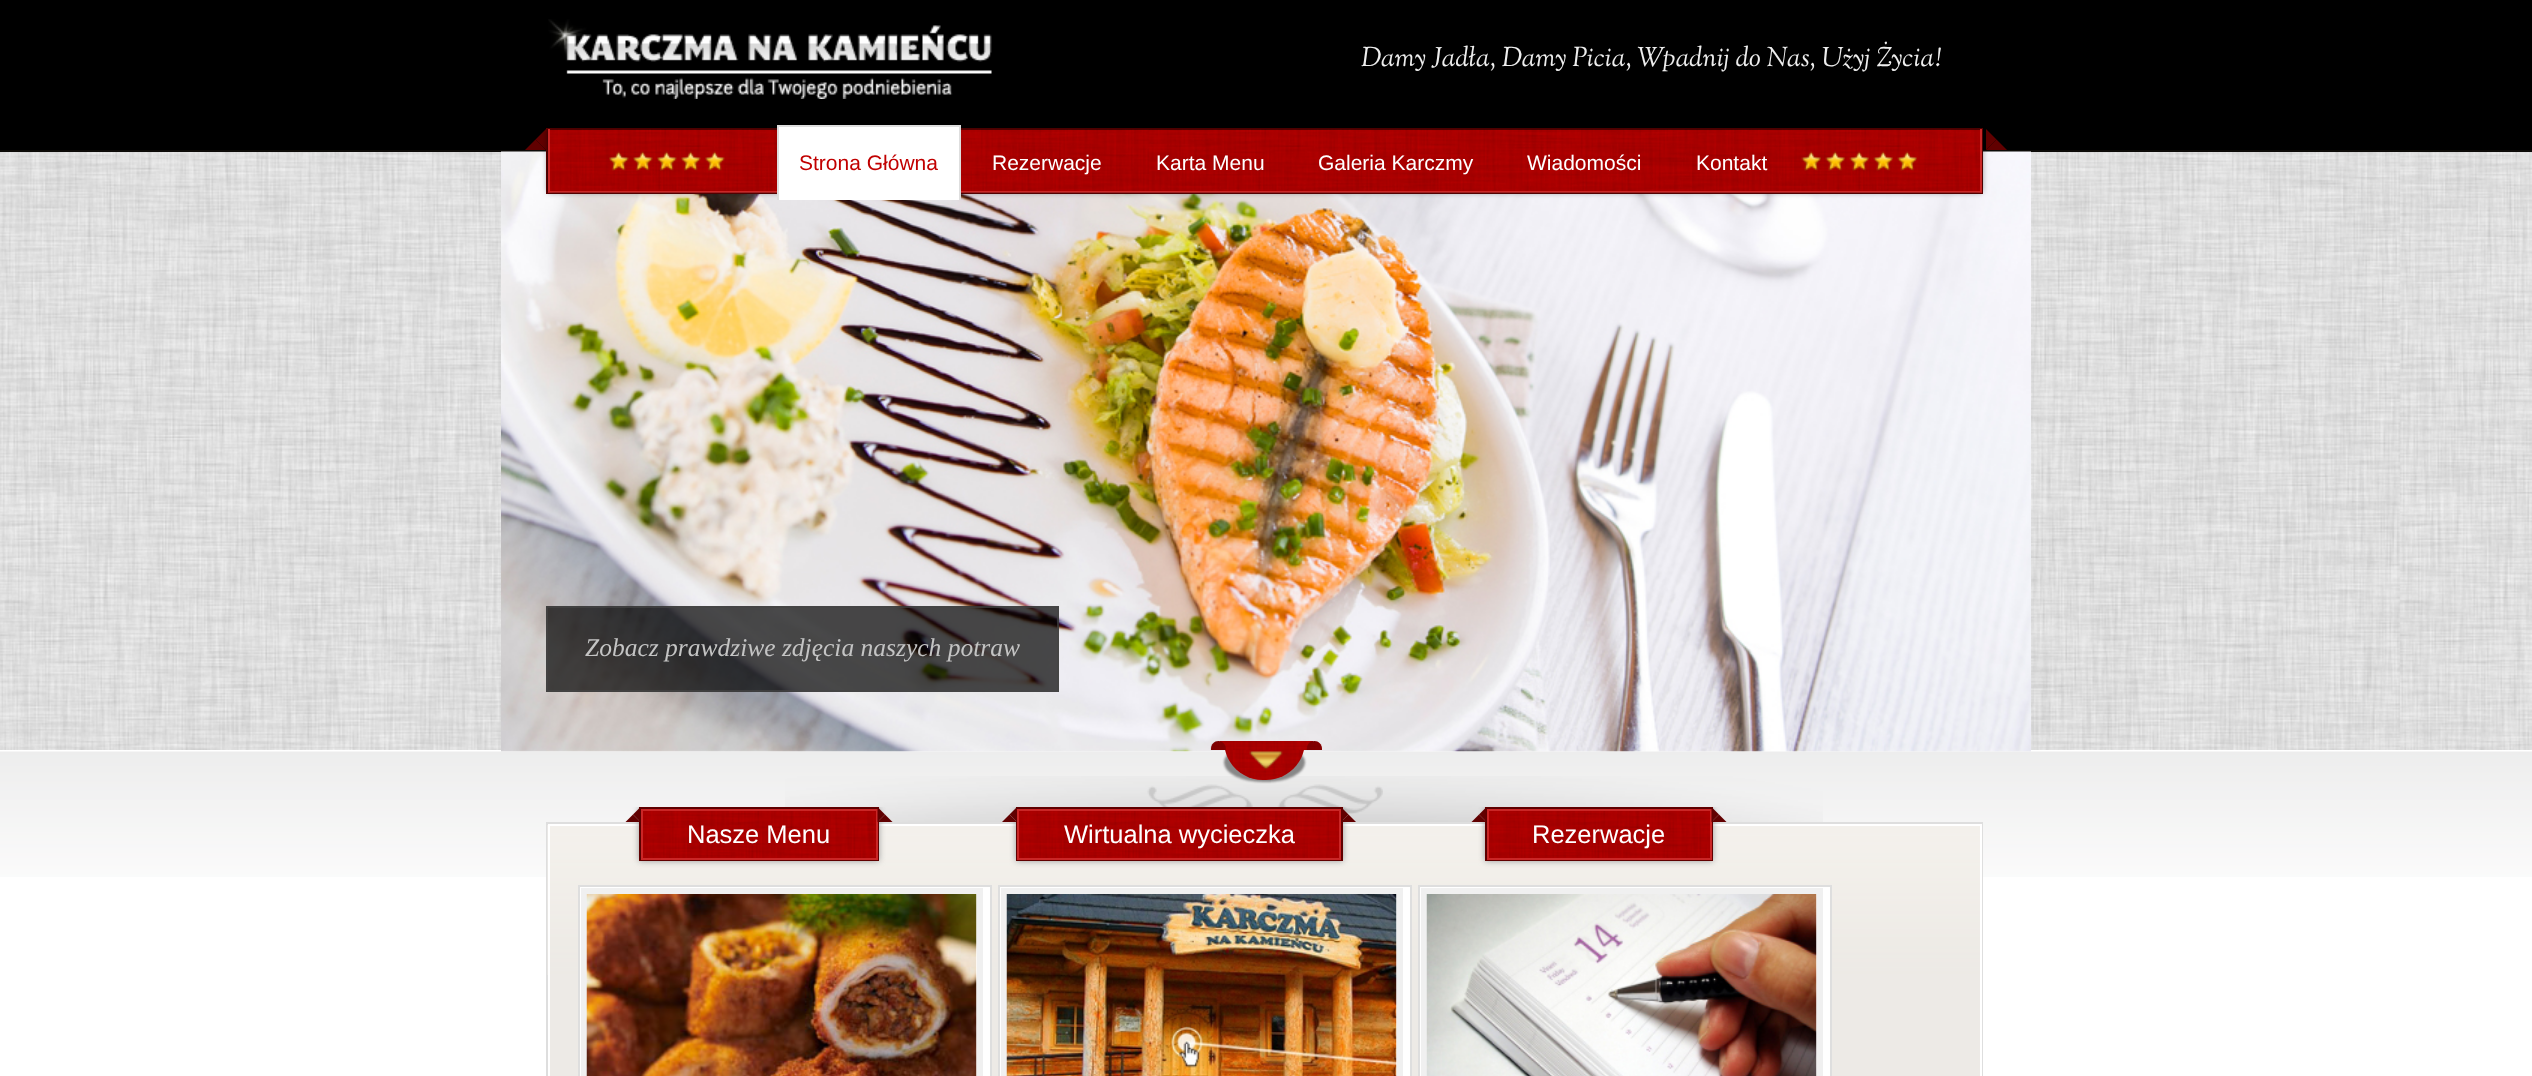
<svg xmlns="http://www.w3.org/2000/svg" width="2532" height="1076">
<style>
.a{font:italic 500 27px OFL Sorts Mill Goudy TT;fill:#eee}
.b{font:21px Liberation Sans;fill:#c10000}
.c{font:21px Liberation Sans;fill:#fff}
.d{font:italic 25.5px Liberation Serif;fill:#c4c4c4}
.e{font:25.5px Liberation Sans;fill:#fff}
</style>
<defs>
<clipPath id="clip1"><path d="M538 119h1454v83h-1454zm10 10h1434v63h-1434z" clip-rule="evenodd"/></clipPath>
<clipPath id="clip2"><path d="M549 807h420v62H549z"/></clipPath>
<clipPath id="clip3"><path d="M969 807h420v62H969z"/></clipPath>
<clipPath id="clip4"><path d="M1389 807h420v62H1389z"/></clipPath>
</defs>
<rect width="100%" height="100%" fill="#fff"/>
<path fill="#000" d="M0 0h2532v150H0z"/>
<image href="1.png" x="548" y="19" width="444" height="80"/>
<path fill="#610000" d="M546 129v21l-10.5-10.5z"/>
<path fill="#610000" d="M546 150h-21l10.5-10.5z"/>
<path fill="#610000" d="M2007 150h-21l10.5-10.5z"/>
<path fill="#610000" d="M1986 150v-21l10.5 10.5z"/>
<path fill="#0d0b08" d="M0 150h2532v2H0z"/>
<image href="13.png" x="0" y="152" width="2532" height="598"/>
<image href="14.png" x="501" y="151" width="1530" height="601"/>
<path fill="#c10000" d="M550 130h1430v61H550z"/>
<path fill="none" stroke="#610000" stroke-width="2" d="M547 129h1435v64H547z"/>
<image href="2.png" x="547" y="129" width="1433" height="63"/>
<path fill="#ca2626" d="M1980 129h2v63H1980z"/>
<path fill="#ca2626" d="M548 191h1434v2H548z"/>
<path fill="#ca2626" d="M548 129h2v63H548z"/>
<image href="3.png" x="609" y="151" width="20" height="20"/>
<image href="4.png" x="633" y="151" width="20" height="20"/>
<image href="5.png" x="657" y="151" width="20" height="20"/>
<image href="6.png" x="681" y="151" width="20" height="20"/>
<image href="7.png" x="705" y="151" width="20" height="20"/>
<g clip-path="url(#clip1)">
<path fill="#00000080" filter="blur(3px)" d="M548 129h1434v63H548z"/>
</g>
<path fill="#fff" d="M779 127h180v73H779z"/>
<path fill="#dedede" d="M777 125h183v2H777z"/>
<path fill="#dedede" d="M959 125h2v75H959z"/>
<path fill="#dedede" d="M777 125h2v75H777z"/>
<image href="8.png" x="1801" y="151" width="20" height="20"/>
<image href="9.png" x="1825" y="151" width="20" height="20"/>
<image href="10.png" x="1849" y="151" width="20" height="20"/>
<image href="11.png" x="1873" y="151" width="20" height="20"/>
<image href="12.png" x="1897" y="151" width="20" height="20"/>
<path fill="#000000b3" d="M546 606h513v86H546z"/>
<path fill="none" stroke="#444444b3" stroke-width="2" d="M547 607h511v84H547z"/>
<image href="15.png" x="0" y="751" width="2532" height="126"/>
<image href="21.png" x="1147" y="784" width="236" height="30"/>
<image href="22.png" x="785" y="776" width="1038" height="46"/>
<rect fill="#888" filter="blur(1px)" x="1224" y="743" width="81" height="39" rx="39"/>
<path fill="#c10000" d="M1224 741h81c0 21.5-17.5 39-39 39h-3c-21.5 0-39-17.5-39-39z"/>
<path fill="#c10000" d="M1220 741h93v9H1220z"/>
<image href="18.png" x="1219" y="741" width="94" height="9"/>
<path fill="#910000" d="M1218.5 741c4 0 7.5 3.5 7.5 7.5v1.5h-15v-1.5c0-4 3.5-7.5 7.5-7.5z"/>
<image href="16.png" x="1210" y="741" width="16" height="9"/>
<image href="17.png" x="1225" y="750" width="79" height="30"/>
<path fill="#910000" d="M1314.5 741c4 0 7.5 3.5 7.5 7.5v1.5h-15v-1.5c0-4 3.5-7.5 7.5-7.5z"/>
<image href="19.png" x="1306" y="741" width="16" height="9"/>
<image href="20.png" x="1249" y="751" width="34" height="19"/>
<path fill="none" stroke="#dedede" stroke-width="2" d="M547 823h1435v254H547z"/>
<path fill="#edeae6" d="M550 975h1430v101H550z"/>
<image href="23.png" x="547" y="825" width="1433" height="150"/>
<path fill="none" stroke="#fff" stroke-width="2" d="M549 825h1432v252H549z"/>
<g clip-path="url(#clip2)">
<path fill="#999" filter="blur(3px)" d="M639 807h240v54H639z"/>
</g>
<path fill="#c10000" d="M643 811h233v47H643z"/>
<path fill="none" stroke="#610000" stroke-width="2" d="M640 808h238v52H640z"/>
<image href="24.png" x="640" y="808" width="238" height="52"/>
<path fill="#610000" d="M640.5 807v15l-7.5-7.5z"/>
<path fill="#610000" d="M640.5 822h-15l7.5-7.5z"/>
<path fill="none" stroke="#ca2626" stroke-width="2" d="M642 810h235v49H642z"/>
<path fill="#610000" d="M892.5 822h-15l7.5-7.5z"/>
<path fill="#610000" d="M877.5 822v-15l7.5 7.5z"/>
<path fill="#fff" stroke="#dedede" stroke-width="2" d="M579 886h412v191H579z"/>
<path fill="none" stroke="#f0f0f0" stroke-width="6" d="M584 891h396v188H584z"/>
<image href="25.png" x="586" y="894" width="391" height="182"/>
<g clip-path="url(#clip3)">
<path fill="#999" filter="blur(3px)" d="M1016 807h327v54H1016z"/>
</g>
<path fill="#c10000" d="M1019 811h320v47H1019z"/>
<path fill="none" stroke="#610000" stroke-width="2" d="M1017 808h325v52H1017z"/>
<path fill="#610000" d="M1017 807v15l-7.5-7.5z"/>
<path fill="#610000" d="M1017 822h-15l7.5-7.5z"/>
<path fill="#610000" d="M1356 822h-15l7.5-7.5z"/>
<path fill="#610000" d="M1341 822v-15l7.5 7.5z"/>
<image href="26.png" x="1017" y="808" width="324" height="50"/>
<path fill="none" stroke="#ca2626" stroke-width="2" d="M1018 810h322v49H1018z"/>
<path fill="#fff" stroke="#dedede" stroke-width="2" d="M999 886h412v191H999z"/>
<path fill="none" stroke="#f0f0f0" stroke-width="6" d="M1004 891h396v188H1004z"/>
<image href="27.png" x="1006" y="894" width="391" height="182"/>
<g clip-path="url(#clip4)">
<path fill="#999" filter="blur(3px)" d="M1485 807h228v54H1485z"/>
</g>
<path fill="#c10000" d="M1489 811h221v47H1489z"/>
<path fill="none" stroke="#610000" stroke-width="2" d="M1486 808h226v52H1486z"/>
<image href="28.png" x="1486" y="808" width="226" height="52"/>
<path fill="#610000" d="M1486.5 807v15l-7.5-7.5z"/>
<path fill="#610000" d="M1486.5 822h-15l7.5-7.5z"/>
<path fill="none" stroke="#ca2626" stroke-width="2" d="M1488 810h223v49H1488z"/>
<path fill="#610000" d="M1726.5 822h-15l7.5-7.5z"/>
<path fill="#610000" d="M1711.5 822v-15l7.5 7.5z"/>
<path fill="#fff" stroke="#dedede" stroke-width="2" d="M1419 886h412v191H1419z"/>
<path fill="none" stroke="#f0f0f0" stroke-width="6" d="M1424 891h396v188H1424z"/>
<image href="29.png" x="1426" y="894" width="391" height="182"/>
<text class="a" x="1361" y="66">Damy Jadła, Damy Picia, Wpadnij do Nas, Użyj Życia!</text>
<text class="b" x="799" y="170">Strona Główna</text>
<text class="c" x="992" y="170">Rezerwacje</text>
<text class="c" x="1156" y="170">Karta Menu</text>
<text class="c" x="1318" y="170">Galeria Karczmy</text>
<text class="c" x="1527" y="170">Wiadomości</text>
<text class="c" x="1696" y="170">Kontakt</text>
<text class="d" x="585" y="656">Zobacz prawdziwe zdjęcia naszych potraw</text>
<text class="e" x="687" y="843">Nasze Menu</text>
<text class="e" x="1064" y="843">Wirtualna wycieczka</text>
<text class="e" x="1532" y="843">Rezerwacje</text>
</svg>
